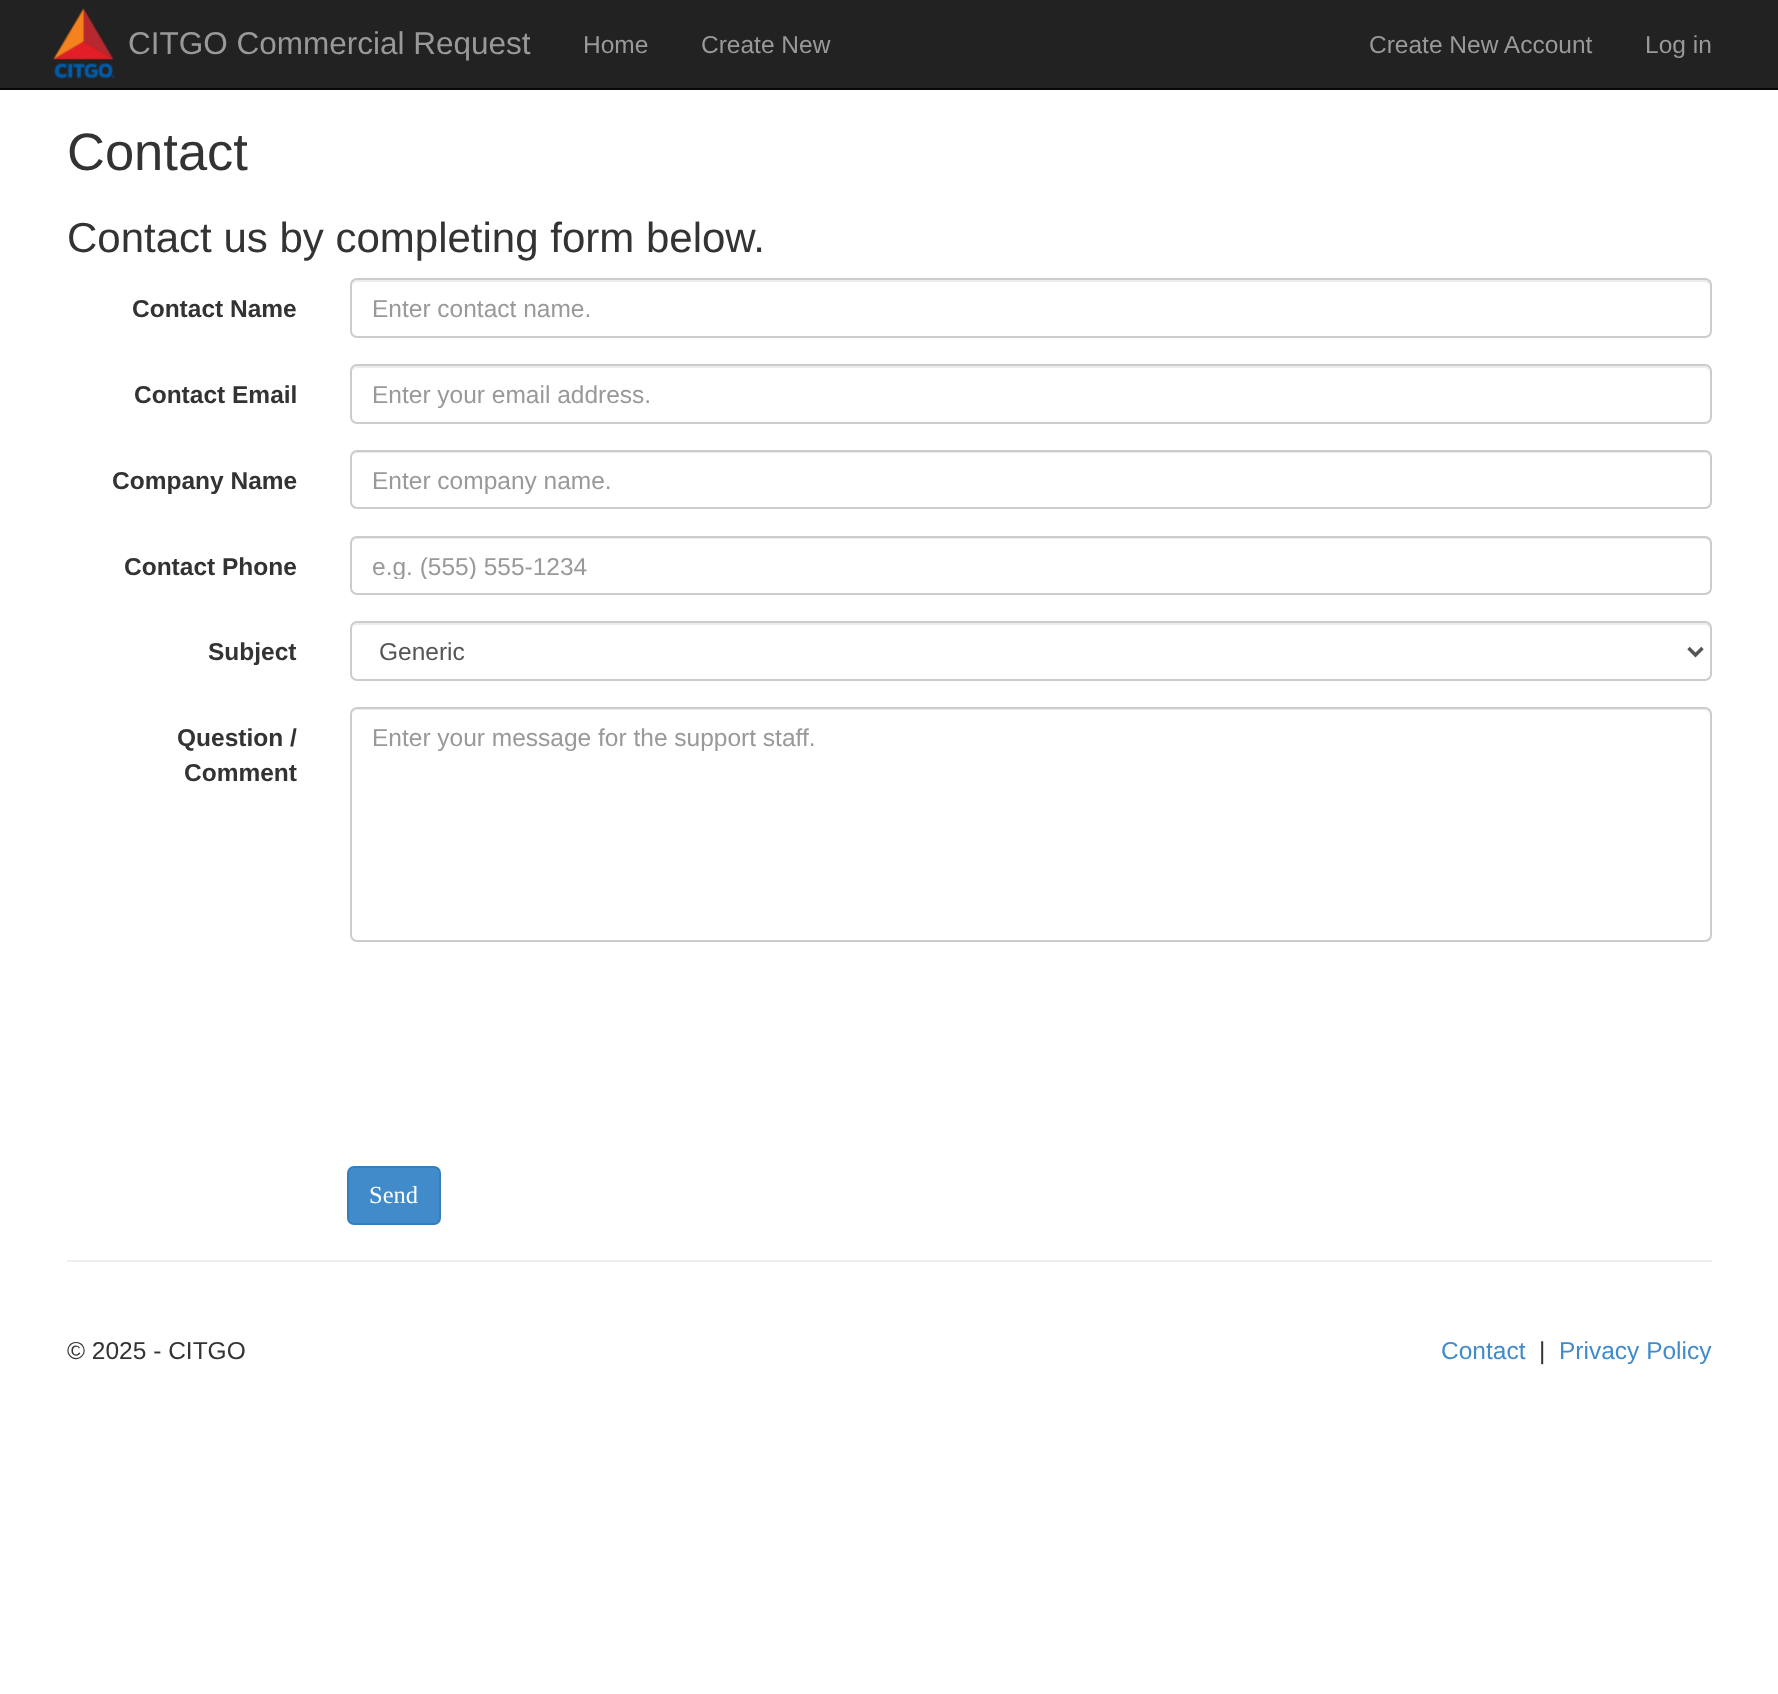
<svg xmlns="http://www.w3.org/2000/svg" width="1778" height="1694">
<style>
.a{font:31.5px Liberation Sans;fill:#999}
.b{font:24.5px Liberation Sans;fill:#999}
.c{font:52.5px Liberation Sans;fill:#333}
.d{font:42px Liberation Sans;fill:#333}
.e{font:bold 24.5px Liberation Sans;fill:#333}
.f{font:24.5px Liberation Sans;fill:#555}
.g{font:24.5px Liberation Serif;fill:#fff}
.h{font:24.5px Liberation Sans;fill:#333}
.i{font:24.5px Liberation Sans;fill:#428bca}
</style>
<defs>
<clipPath id="clip1"><path d="M373 551h1316v28H373z"/></clipPath>
</defs>
<rect width="100%" height="100%" fill="#fff"/>
<path fill="#222" d="M0 0h1778v88H0z"/>
<path fill="#080808" d="M0 88h1778v2H0z"/>
<image href="1.png" x="53" y="8" width="62" height="71"/>
<path fill="#ececec" d="M357 282h1347c3 0 6 2 6 5c0-3-1-7-5-7h-1348c-4 0-5 4-5 7c0-3 2-5 5-5z"/>
<rect fill="none" stroke="#ccc" stroke-width="2" x="351" y="279" width="1360" height="58" rx="6"/>
<path fill="#ececec" d="M357 368h1347c3 0 6 2 6 5c0-3-1-7-5-7h-1348c-4 0-5 4-5 7c0-3 2-5 5-5z"/>
<rect fill="none" stroke="#ccc" stroke-width="2" x="351" y="365" width="1360" height="58" rx="6"/>
<path fill="#ececec" d="M357 453h1347c3 0 6 3 6 5c0-3-2-6-5-6h-1348c-3 0-5 3-5 6c0-2 2-5 5-5z"/>
<rect fill="none" stroke="#ccc" stroke-width="2" x="351" y="451" width="1360" height="57" rx="6"/>
<path fill="#ececec" d="M357 539h1347c3 0 6 2 6 5c0-3-1-7-5-7h-1348c-4 0-5 4-5 7c0-3 2-5 5-5z"/>
<rect fill="none" stroke="#ccc" stroke-width="2" x="351" y="537" width="1360" height="57" rx="6"/>
<path fill="#ececec" d="M357 625h1347c3 0 6 2 6 5c0-3-1-7-5-7h-1348c-4 0-5 4-5 7c0-3 2-5 5-5z"/>
<rect fill="none" stroke="#ccc" stroke-width="2" x="351" y="622" width="1360" height="58" rx="6"/>
<path fill="none" stroke="#555" stroke-width="3.5" d="M1688.5 648l7 7l7-7"/>
<path fill="#ececec" d="M357 710h1347c3 0 6 3 6 6c0-3-1-7-5-7h-1348c-4 0-5 4-5 7c0-3 2-6 5-6z"/>
<rect fill="none" stroke="#ccc" stroke-width="2" x="351" y="708" width="1360" height="233" rx="6"/>
<rect fill="#428bca" stroke="#357ebd" stroke-width="2" x="348" y="1167" width="92" height="57" rx="6"/>
<path fill="#eee" d="M67 1260h1645v2H67z"/>
<text class="a" x="128" y="54">CITGO Commercial Request</text>
<text class="b" x="583" y="53">Home</text>
<text class="b" x="701" y="53">Create New</text>
<text class="b" x="1369" y="53">Create New Account</text>
<text class="b" x="1645" y="53">Log in</text>
<text class="c" x="67" y="170">Contact</text>
<text class="d" x="67" y="252">Contact us by completing form below.</text>
<text class="e" x="132" y="317">Contact Name</text>
<text class="b" x="372" y="317">Enter contact name.</text>
<text class="e" x="134" y="403">Contact Email</text>
<text class="b" x="372" y="403">Enter your email address.</text>
<text class="e" x="112" y="489">Company Name</text>
<text class="b" x="372" y="489">Enter company name.</text>
<text class="e" x="124" y="575">Contact Phone</text>
<g clip-path="url(#clip1)">
<text class="b" x="372" y="575">e.g. (555) 555-1234</text>
</g>
<text class="e" x="208" y="660">Subject</text>
<text class="f" x="379" y="660">Generic</text>
<text class="e" x="177" y="746">Question /</text>
<text class="e" x="184" y="781">Comment</text>
<text class="b" x="372" y="746">Enter your message for the support staff.</text>
<text class="g" x="369" y="1203">Send</text>
<text class="h" x="67" y="1359">© 2025 - CITGO</text>
<text class="i" x="1441" y="1359">Contact</text>
<text class="h" x="1539" y="1359">|</text>
<text class="i" x="1559" y="1359">Privacy Policy</text>
</svg>
